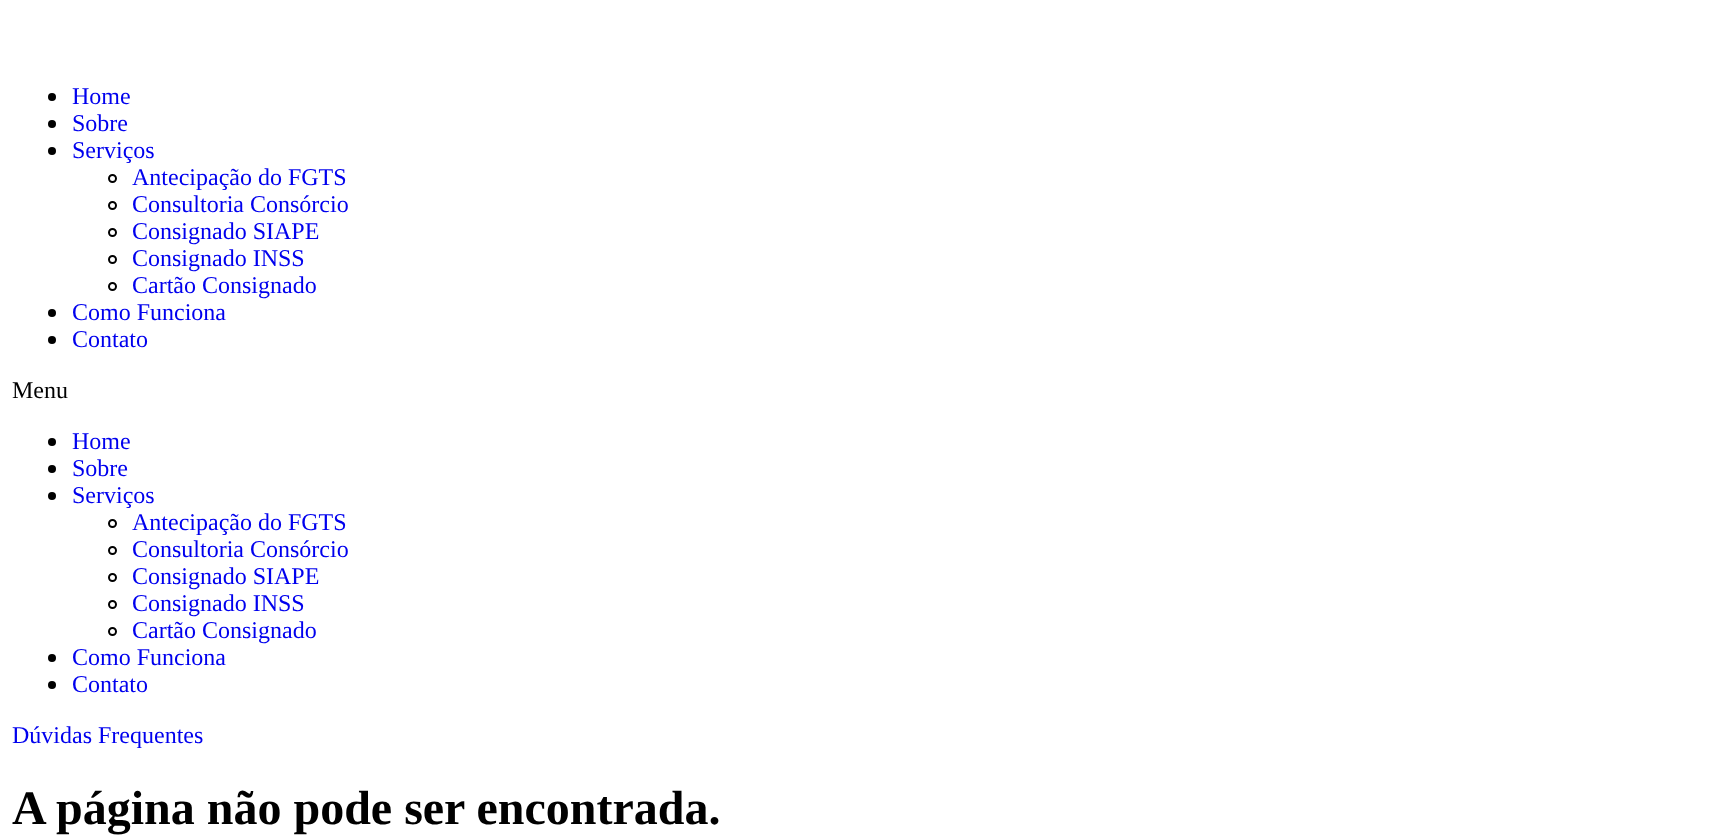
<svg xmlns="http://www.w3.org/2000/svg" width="1722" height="840">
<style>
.a{font:24px Liberation Serif;fill:#00e}
.b{font:24px Liberation Serif;fill:#000}
.c{font:bold 48px Liberation Serif;fill:#000}
</style>
<rect width="100%" height="100%" fill="#fff"/>
<circle fill="#000" cx="52" cy="97" r="4"/>
<circle fill="#000" cx="52" cy="124" r="4"/>
<circle fill="#000" cx="52" cy="151" r="4"/>
<circle fill="none" stroke="#000" stroke-width="2" cx="112.5" cy="178.5" r="3.5"/>
<circle fill="none" stroke="#000" stroke-width="2" cx="112.5" cy="205.5" r="3.5"/>
<circle fill="none" stroke="#000" stroke-width="2" cx="112.5" cy="232.5" r="3.5"/>
<circle fill="none" stroke="#000" stroke-width="2" cx="112.5" cy="259.5" r="3.5"/>
<circle fill="none" stroke="#000" stroke-width="2" cx="112.5" cy="286.5" r="3.5"/>
<circle fill="#000" cx="52" cy="313" r="4"/>
<circle fill="#000" cx="52" cy="340" r="4"/>
<circle fill="#000" cx="52" cy="442" r="4"/>
<circle fill="#000" cx="52" cy="469" r="4"/>
<circle fill="#000" cx="52" cy="496" r="4"/>
<circle fill="none" stroke="#000" stroke-width="2" cx="112.5" cy="523.5" r="3.5"/>
<circle fill="none" stroke="#000" stroke-width="2" cx="112.5" cy="550.5" r="3.5"/>
<circle fill="none" stroke="#000" stroke-width="2" cx="112.5" cy="577.5" r="3.5"/>
<circle fill="none" stroke="#000" stroke-width="2" cx="112.5" cy="604.5" r="3.5"/>
<circle fill="none" stroke="#000" stroke-width="2" cx="112.5" cy="631.5" r="3.5"/>
<circle fill="#000" cx="52" cy="658" r="4"/>
<circle fill="#000" cx="52" cy="685" r="4"/>
<text class="a" x="72" y="104">Home</text>
<text class="a" x="72" y="131">Sobre</text>
<text class="a" x="72" y="158">Serviços</text>
<text class="a" x="132" y="185">Antecipação do FGTS</text>
<text class="a" x="132" y="212">Consultoria Consórcio</text>
<text class="a" x="132" y="239">Consignado SIAPE</text>
<text class="a" x="132" y="266">Consignado INSS</text>
<text class="a" x="132" y="293">Cartão Consignado</text>
<text class="a" x="72" y="320">Como Funciona</text>
<text class="a" x="72" y="347">Contato</text>
<text class="b" x="12" y="398">Menu</text>
<text class="a" x="72" y="449">Home</text>
<text class="a" x="72" y="476">Sobre</text>
<text class="a" x="72" y="503">Serviços</text>
<text class="a" x="132" y="530">Antecipação do FGTS</text>
<text class="a" x="132" y="557">Consultoria Consórcio</text>
<text class="a" x="132" y="584">Consignado SIAPE</text>
<text class="a" x="132" y="611">Consignado INSS</text>
<text class="a" x="132" y="638">Cartão Consignado</text>
<text class="a" x="72" y="665">Como Funciona</text>
<text class="a" x="72" y="692">Contato</text>
<text class="a" x="12" y="743">Dúvidas Frequentes</text>
<text class="c" x="12" y="824">A página não pode ser encontrada.</text>
</svg>
